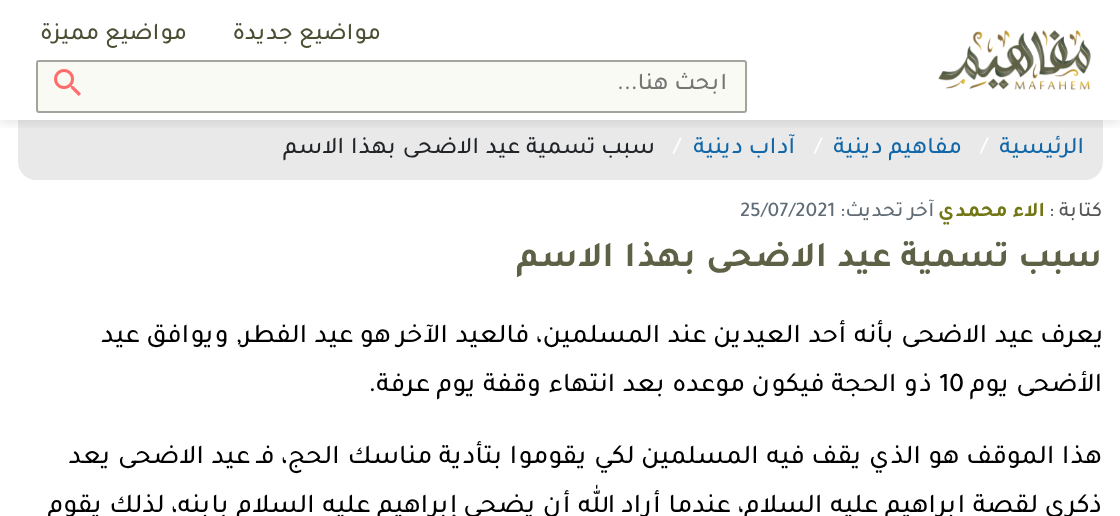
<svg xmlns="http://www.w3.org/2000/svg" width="1120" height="516">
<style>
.a{font:500 24px Tajawal;direction:rtl;fill:#4c4f33}
.b{font:500 24px Tajawal;direction:rtl;fill:#757575}
.c{font:500 24px Tajawal;direction:rtl;fill:#1167a7}
.d{font:500 24px Tajawal;fill:#fff}
.e{font:500 24px Tajawal;direction:rtl;fill:#212529}
.f{font:500 21px Tajawal;direction:rtl;fill:#575757}
.g{font:bold 21px Tajawal;direction:rtl;fill:#727614}
.h{font:500 21px Tajawal;direction:rtl;fill:#616c75}
.i{font:500 21px Tajawal;fill:#616c75}
.j{font:bold 36px Tajawal;direction:rtl;fill:#5e6146}
.k{font:500 27px Tajawal;direction:rtl;fill:#000}
.l{font:500 27px Tajawal;fill:#000}
</style>
<defs>
<clipPath id="clip1"><path d="M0 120h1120v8H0z"/></clipPath>
</defs>
<rect width="100%" height="100%" fill="#fff"/>
<path fill="#e9e9e9" d="M18 120h1085v42c0 10-8 18-18 18h-1049c-10 0-18-8-18-18z"/>
<g clip-path="url(#clip1)">
<path fill="#0000001a" filter="blur(6px)" d="M0 3h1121v120H0z"/>
</g>
<image href="1.png" x="938" y="30" width="153" height="60"/>
<rect fill="#fafaf4" stroke="#a3a49b" stroke-width="2" x="37" y="61" width="709" height="51" rx="2"/>
<image href="2.png" x="54" y="69" width="27" height="27"/>
<text class="a" x="381" y="39">مواضيع جديدة</text>
<text class="a" x="187" y="39">مواضيع مميزة</text>
<text class="b" x="727" y="89">ابحث هنا...</text>
<text class="c" x="1084" y="153">الرئيسية</text>
<text class="d" x="980" y="153">/</text>
<text class="c" x="962" y="153">مفاهيم دينية</text>
<text class="d" x="814" y="153">/</text>
<text class="c" x="795" y="153">آداب دينية</text>
<text class="d" x="673" y="153">/</text>
<text class="e" x="655" y="153">سبب تسمية عيد الاضحى بهذا الاسم</text>
<text class="f" x="1102" y="216">كتابة :</text>
<text class="g" x="1045" y="216">الاء محمدي</text>
<text class="h" x="934" y="216">آخر تحديث:</text>
<text class="i" x="740" y="216">25/07/2021</text>
<text class="j" x="1102" y="266">سبب تسمية عيد الاضحى بهذا الاسم</text>
<text class="k" x="1103" y="342">يعرف عيد الاضحى بأنه أحد العيدين عند المسلمين، فالعيد الآخر هو عيد الفطر, ويوافق عيد</text>
<text class="k" x="1102" y="391">الأضحى يوم</text>
<text class="l" x="939" y="391">10</text>
<text class="k" x="932" y="391">ذو الحجة فيكون موعده بعد انتهاء وقفة يوم عرفة.</text>
<text class="k" x="1102" y="463">هذا الموقف هو الذي يقف فيه المسلمين لكي يقوموا بتأدية مناسك الحج، فـ عيد الاضحى يعد</text>
<text class="k" x="1102" y="512">ذكرى لقصة ابراهيم عليه السلام، عندما أراد الله أن يضحي إبراهيم عليه السلام بابنه، لذلك يقوم</text>
</svg>
